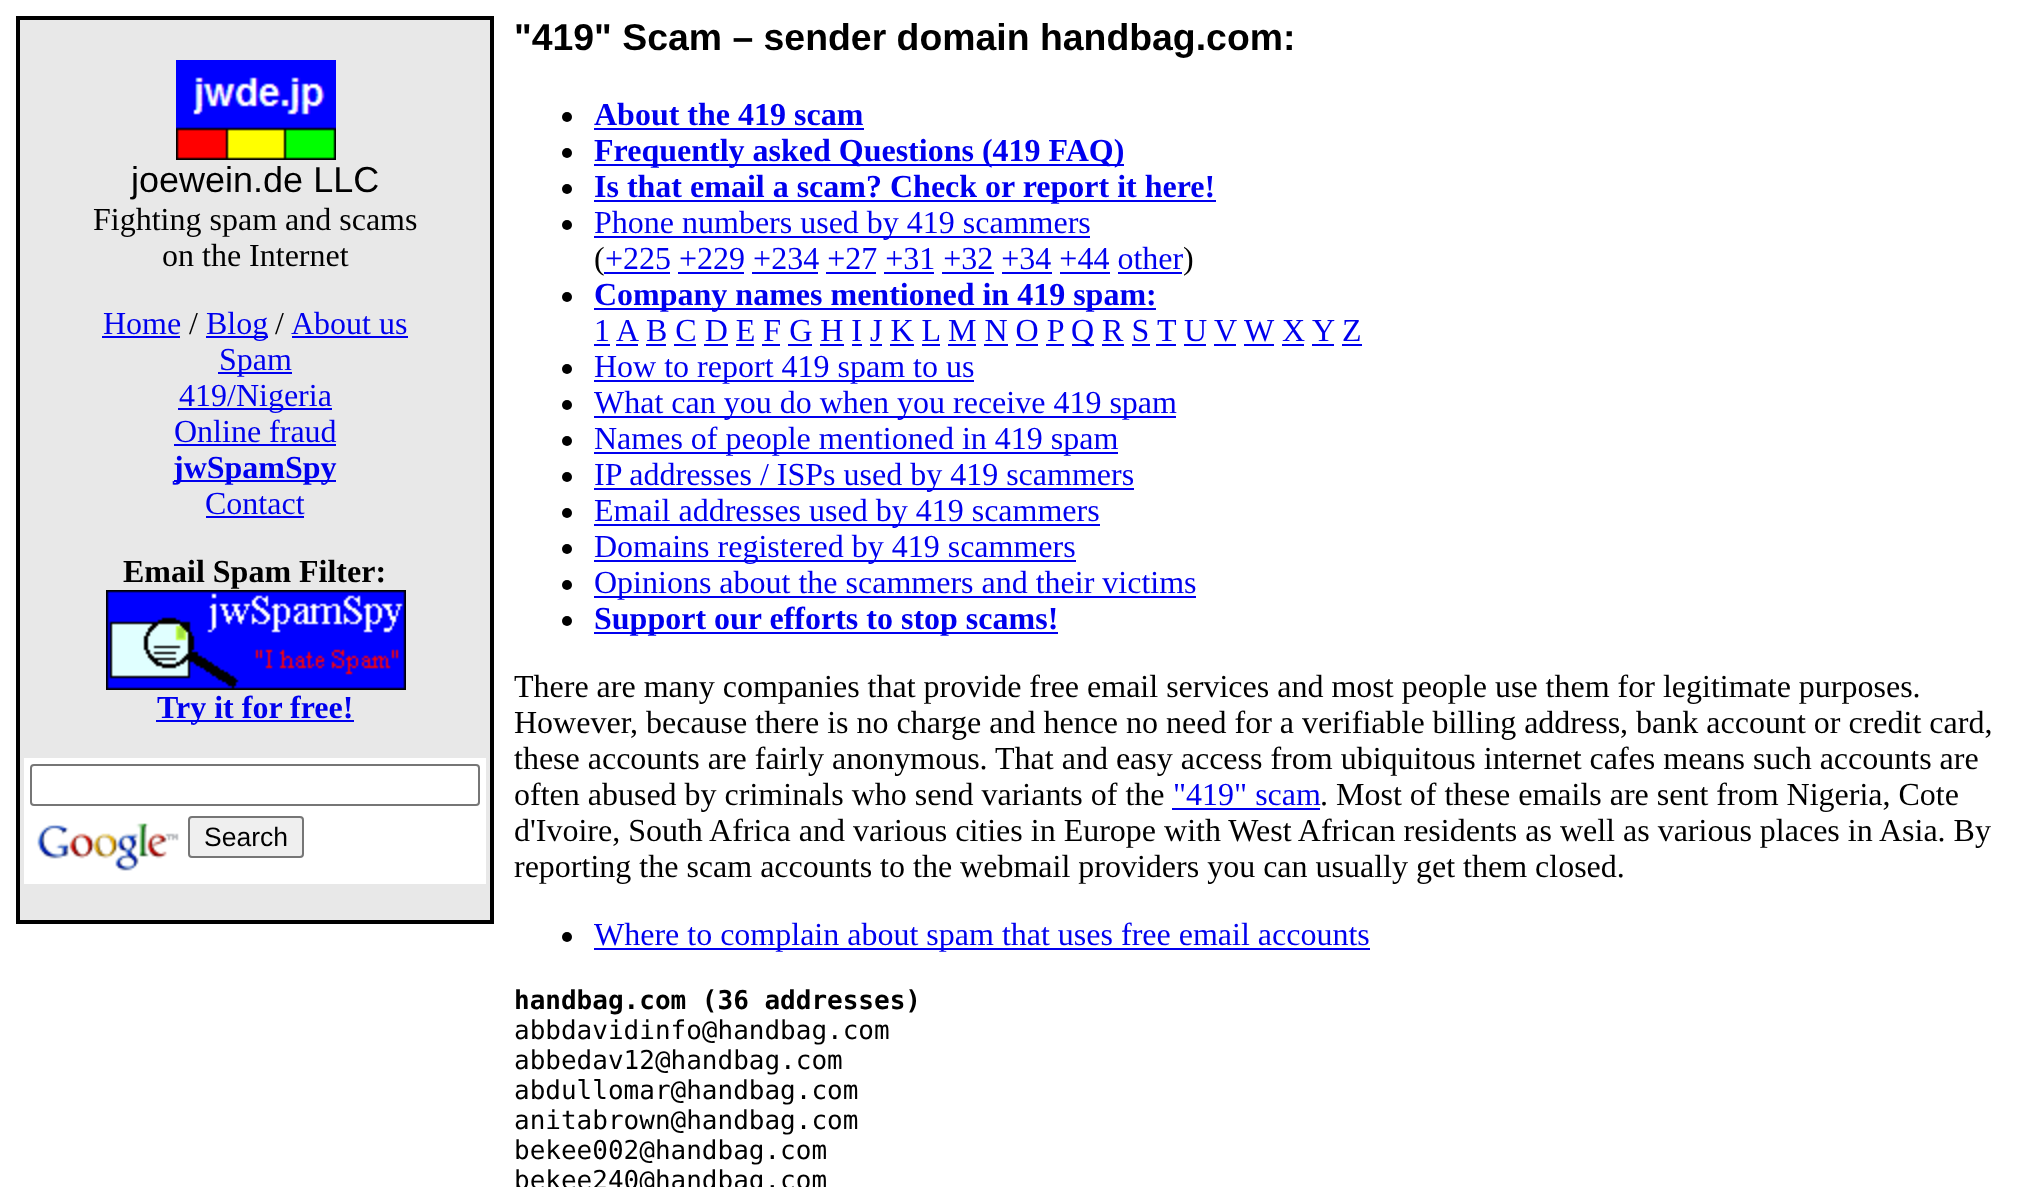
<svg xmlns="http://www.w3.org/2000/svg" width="2040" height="1187">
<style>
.a{font:36px Liberation Sans;fill:#000}
.b{font:32px Liberation Serif;fill:#000}
.c{font:32px Liberation Serif;fill:#00e}
.d{font:bold 32px Liberation Serif;fill:#00e}
.e{font:bold 32px Liberation Serif;fill:#000}
.f{font:26.5px Liberation Sans;fill:#000}
.g{font:bold 37.4px Liberation Sans;fill:#000}
.h{font:bold 26px DejaVu Sans Mono;fill:#000}
.i{font:26px DejaVu Sans Mono;fill:#000}
</style>
<rect width="100%" height="100%" fill="#fff"/>
<path fill="#000" d="M16 16h478v908H16z"/>
<path fill="#e8e8e8" d="M20 20h470v900H20z"/>
<image href="1.png" x="176" y="60" width="160" height="100"/>
<path fill="#00e" d="M102 336h78v2H102z"/>
<path fill="#00e" d="M206 336h62v2H206z"/>
<path fill="#00e" d="M292 336h116v2H292z"/>
<path fill="#00e" d="M218 372h74v2H218z"/>
<path fill="#00e" d="M178 408h154v2H178z"/>
<path fill="#00e" d="M174 444h162v2H174z"/>
<path fill="#00e" d="M174 480h162v2H174z"/>
<path fill="#00e" d="M206 516h98v2H206z"/>
<image href="2.png" x="106" y="590" width="300" height="100"/>
<path fill="#00e" d="M156 720h198v2H156z"/>
<path fill="#fff" d="M24 758h462v126H24z"/>
<rect fill="none" stroke="#767676" stroke-width="2" x="31" y="765" width="448" height="40" rx="3"/>
<image href="3.png" x="37" y="823" width="142" height="48"/>
<rect fill="#efefef" stroke="#767676" stroke-width="2" x="189" y="817" width="114" height="40" rx="3"/>
<circle fill="#000" cx="567" cy="117" r="5"/>
<path fill="#00e" d="M594 128h270v2H594z"/>
<circle fill="#000" cx="567" cy="153" r="5"/>
<path fill="#00e" d="M594 164h530v2H594z"/>
<circle fill="#000" cx="567" cy="189" r="5"/>
<path fill="#00e" d="M594 200h622v2H594z"/>
<circle fill="#000" cx="567" cy="225" r="5"/>
<path fill="#00e" d="M594 236h496v2H594z"/>
<path fill="#00e" d="M604 272h66v2H604z"/>
<path fill="#00e" d="M678 272h66v2H678z"/>
<path fill="#00e" d="M752 272h66v2H752z"/>
<path fill="#00e" d="M826 272h50v2H826z"/>
<path fill="#00e" d="M884 272h50v2H884z"/>
<path fill="#00e" d="M942 272h52v2H942z"/>
<path fill="#00e" d="M1002 272h50v2H1002z"/>
<path fill="#00e" d="M1060 272h50v2H1060z"/>
<path fill="#00e" d="M1118 272h64v2H1118z"/>
<circle fill="#000" cx="567" cy="297" r="5"/>
<path fill="#00e" d="M594 308h562v2H594z"/>
<path fill="#00e" d="M594 344h16v2H594z"/>
<path fill="#00e" d="M616 344h22v2H616z"/>
<path fill="#00e" d="M646 344h20v2H646z"/>
<path fill="#00e" d="M948 344h28v2H948z"/>
<path fill="#00e" d="M1072 344h22v2H1072z"/>
<path fill="#00e" d="M1156 344h20v2H1156z"/>
<path fill="#00e" d="M1184 344h22v2H1184z"/>
<path fill="#00e" d="M1214 344h22v2H1214z"/>
<path fill="#00e" d="M1244 344h30v2H1244z"/>
<path fill="#00e" d="M1282 344h22v2H1282z"/>
<path fill="#00e" d="M1312 344h22v2H1312z"/>
<path fill="#00e" d="M1342 344h20v2H1342z"/>
<path fill="#00e" d="M674 344h22v2H674z"/>
<path fill="#00e" d="M704 344h24v2H704z"/>
<path fill="#00e" d="M736 344h18v2H736z"/>
<path fill="#00e" d="M762 344h18v2H762z"/>
<path fill="#00e" d="M788 344h24v2H788z"/>
<path fill="#00e" d="M820 344h24v2H820z"/>
<path fill="#00e" d="M852 344h10v2H852z"/>
<path fill="#00e" d="M870 344h12v2H870z"/>
<path fill="#00e" d="M890 344h24v2H890z"/>
<path fill="#00e" d="M922 344h18v2H922z"/>
<path fill="#00e" d="M984 344h24v2H984z"/>
<path fill="#00e" d="M1016 344h22v2H1016z"/>
<path fill="#00e" d="M1046 344h18v2H1046z"/>
<path fill="#00e" d="M1102 344h22v2H1102z"/>
<path fill="#00e" d="M1132 344h18v2H1132z"/>
<circle fill="#000" cx="567" cy="369" r="5"/>
<path fill="#00e" d="M594 380h380v2H594z"/>
<circle fill="#000" cx="567" cy="405" r="5"/>
<path fill="#00e" d="M594 416h582v2H594z"/>
<circle fill="#000" cx="567" cy="441" r="5"/>
<path fill="#00e" d="M594 452h524v2H594z"/>
<circle fill="#000" cx="567" cy="477" r="5"/>
<path fill="#00e" d="M594 488h540v2H594z"/>
<circle fill="#000" cx="567" cy="513" r="5"/>
<path fill="#00e" d="M594 524h506v2H594z"/>
<circle fill="#000" cx="567" cy="549" r="5"/>
<path fill="#00e" d="M594 560h482v2H594z"/>
<circle fill="#000" cx="567" cy="585" r="5"/>
<path fill="#00e" d="M594 596h602v2H594z"/>
<circle fill="#000" cx="567" cy="621" r="5"/>
<path fill="#00e" d="M594 632h464v2H594z"/>
<path fill="#00e" d="M1172 808h148v2H1172z"/>
<circle fill="#000" cx="567" cy="937" r="5"/>
<path fill="#00e" d="M594 948h776v2H594z"/>
<text class="a" x="131" y="192">joewein.de LLC</text>
<text class="b" x="93" y="230">Fighting spam and scams</text>
<text class="b" x="162" y="266">on the Internet</text>
<text class="c" x="103" y="334">Home</text>
<text class="b" x="189" y="334">/</text>
<text class="c" x="206" y="334">Blog</text>
<text class="b" x="275" y="334">/</text>
<text class="c" x="291" y="334">About us</text>
<text class="c" x="219" y="370">Spam</text>
<text class="c" x="179" y="406">419/Nigeria</text>
<text class="c" x="174" y="442">Online fraud</text>
<text class="d" x="173" y="478">jwSpamSpy</text>
<text class="c" x="205" y="514">Contact</text>
<text class="e" x="123" y="582">Email Spam Filter:</text>
<text class="d" x="157" y="718">Try it for free!</text>
<text class="f" x="204" y="846">Search</text>
<text class="g" x="514" y="50">"419" Scam – sender domain handbag.com:</text>
<text class="d" x="594" y="125">About the 419 scam</text>
<text class="d" x="594" y="161">Frequently asked Questions (419 FAQ)</text>
<text class="d" x="594" y="197">Is that email a scam? Check or report it here!</text>
<text class="c" x="594" y="233">Phone numbers used by 419 scammers</text>
<text class="b" x="594" y="269">(</text>
<text class="c" x="605" y="269">+225 +229 +234 +27 +31 +32 +34 +44 other</text>
<text class="b" x="1183" y="269">)</text>
<text class="d" x="594" y="305">Company names mentioned in 419 spam:</text>
<text class="c" x="594" y="341">1</text>
<text class="c" x="616" y="341">A</text>
<text class="c" x="646" y="341">B C D E F G H I J K L</text>
<text class="c" x="948" y="341">M N O P</text>
<text class="c" x="1071" y="341">Q R S</text>
<text class="c" x="1157" y="341">T</text>
<text class="c" x="1184" y="341">U</text>
<text class="c" x="1214" y="341">V</text>
<text class="c" x="1244" y="341">W</text>
<text class="c" x="1282" y="341">X</text>
<text class="c" x="1312" y="341">Y</text>
<text class="c" x="1342" y="341">Z</text>
<text class="c" x="594" y="377">How to report 419 spam to us</text>
<text class="c" x="594" y="413">What can you do when you receive 419 spam</text>
<text class="c" x="594" y="449">Names of people mentioned in 419 spam</text>
<text class="c" x="594" y="485">IP addresses / ISPs used by 419 scammers</text>
<text class="c" x="594" y="521">Email addresses used by 419 scammers</text>
<text class="c" x="594" y="557">Domains registered by 419 scammers</text>
<text class="c" x="594" y="593">Opinions about the scammers and their victims</text>
<text class="d" x="594" y="629">Support our efforts to stop scams!</text>
<text class="b" x="514" y="697">There are many companies that provide free email services and most people use them for legitimate purposes.</text>
<text class="b" x="514" y="733">However, because there is no charge and hence no need for a verifiable billing address, bank account or credit card,</text>
<text class="b" x="514" y="769">these accounts are fairly anonymous. That and easy access from ubiquitous internet cafes means such accounts are</text>
<text class="b" x="514" y="805">often abused by criminals who send variants of the</text>
<text class="c" x="1173" y="805">"419" scam</text>
<text class="b" x="1320" y="805">. Most of these emails are sent from Nigeria, Cote</text>
<text class="b" x="514" y="841">d'Ivoire, South Africa and various cities in Europe with West African residents as well as various places in Asia. By</text>
<text class="b" x="514" y="877">reporting the scam accounts to the webmail providers you can usually get them closed.</text>
<text class="c" x="594" y="945">Where to complain about spam that uses free email accounts</text>
<text class="h" x="514" y="1009">handbag.com (36 addresses)</text>
<text class="i" x="514" y="1039">abbdavidinfo@handbag.com</text>
<text class="i" x="514" y="1069">abbedav12@handbag.com</text>
<text class="i" x="514" y="1099">abdullomar@handbag.com</text>
<text class="i" x="514" y="1129">anitabrown@handbag.com</text>
<text class="i" x="514" y="1159">bekee002@handbag.com</text>
<text class="i" x="514" y="1189">bekee240@handbag.com</text>
</svg>
